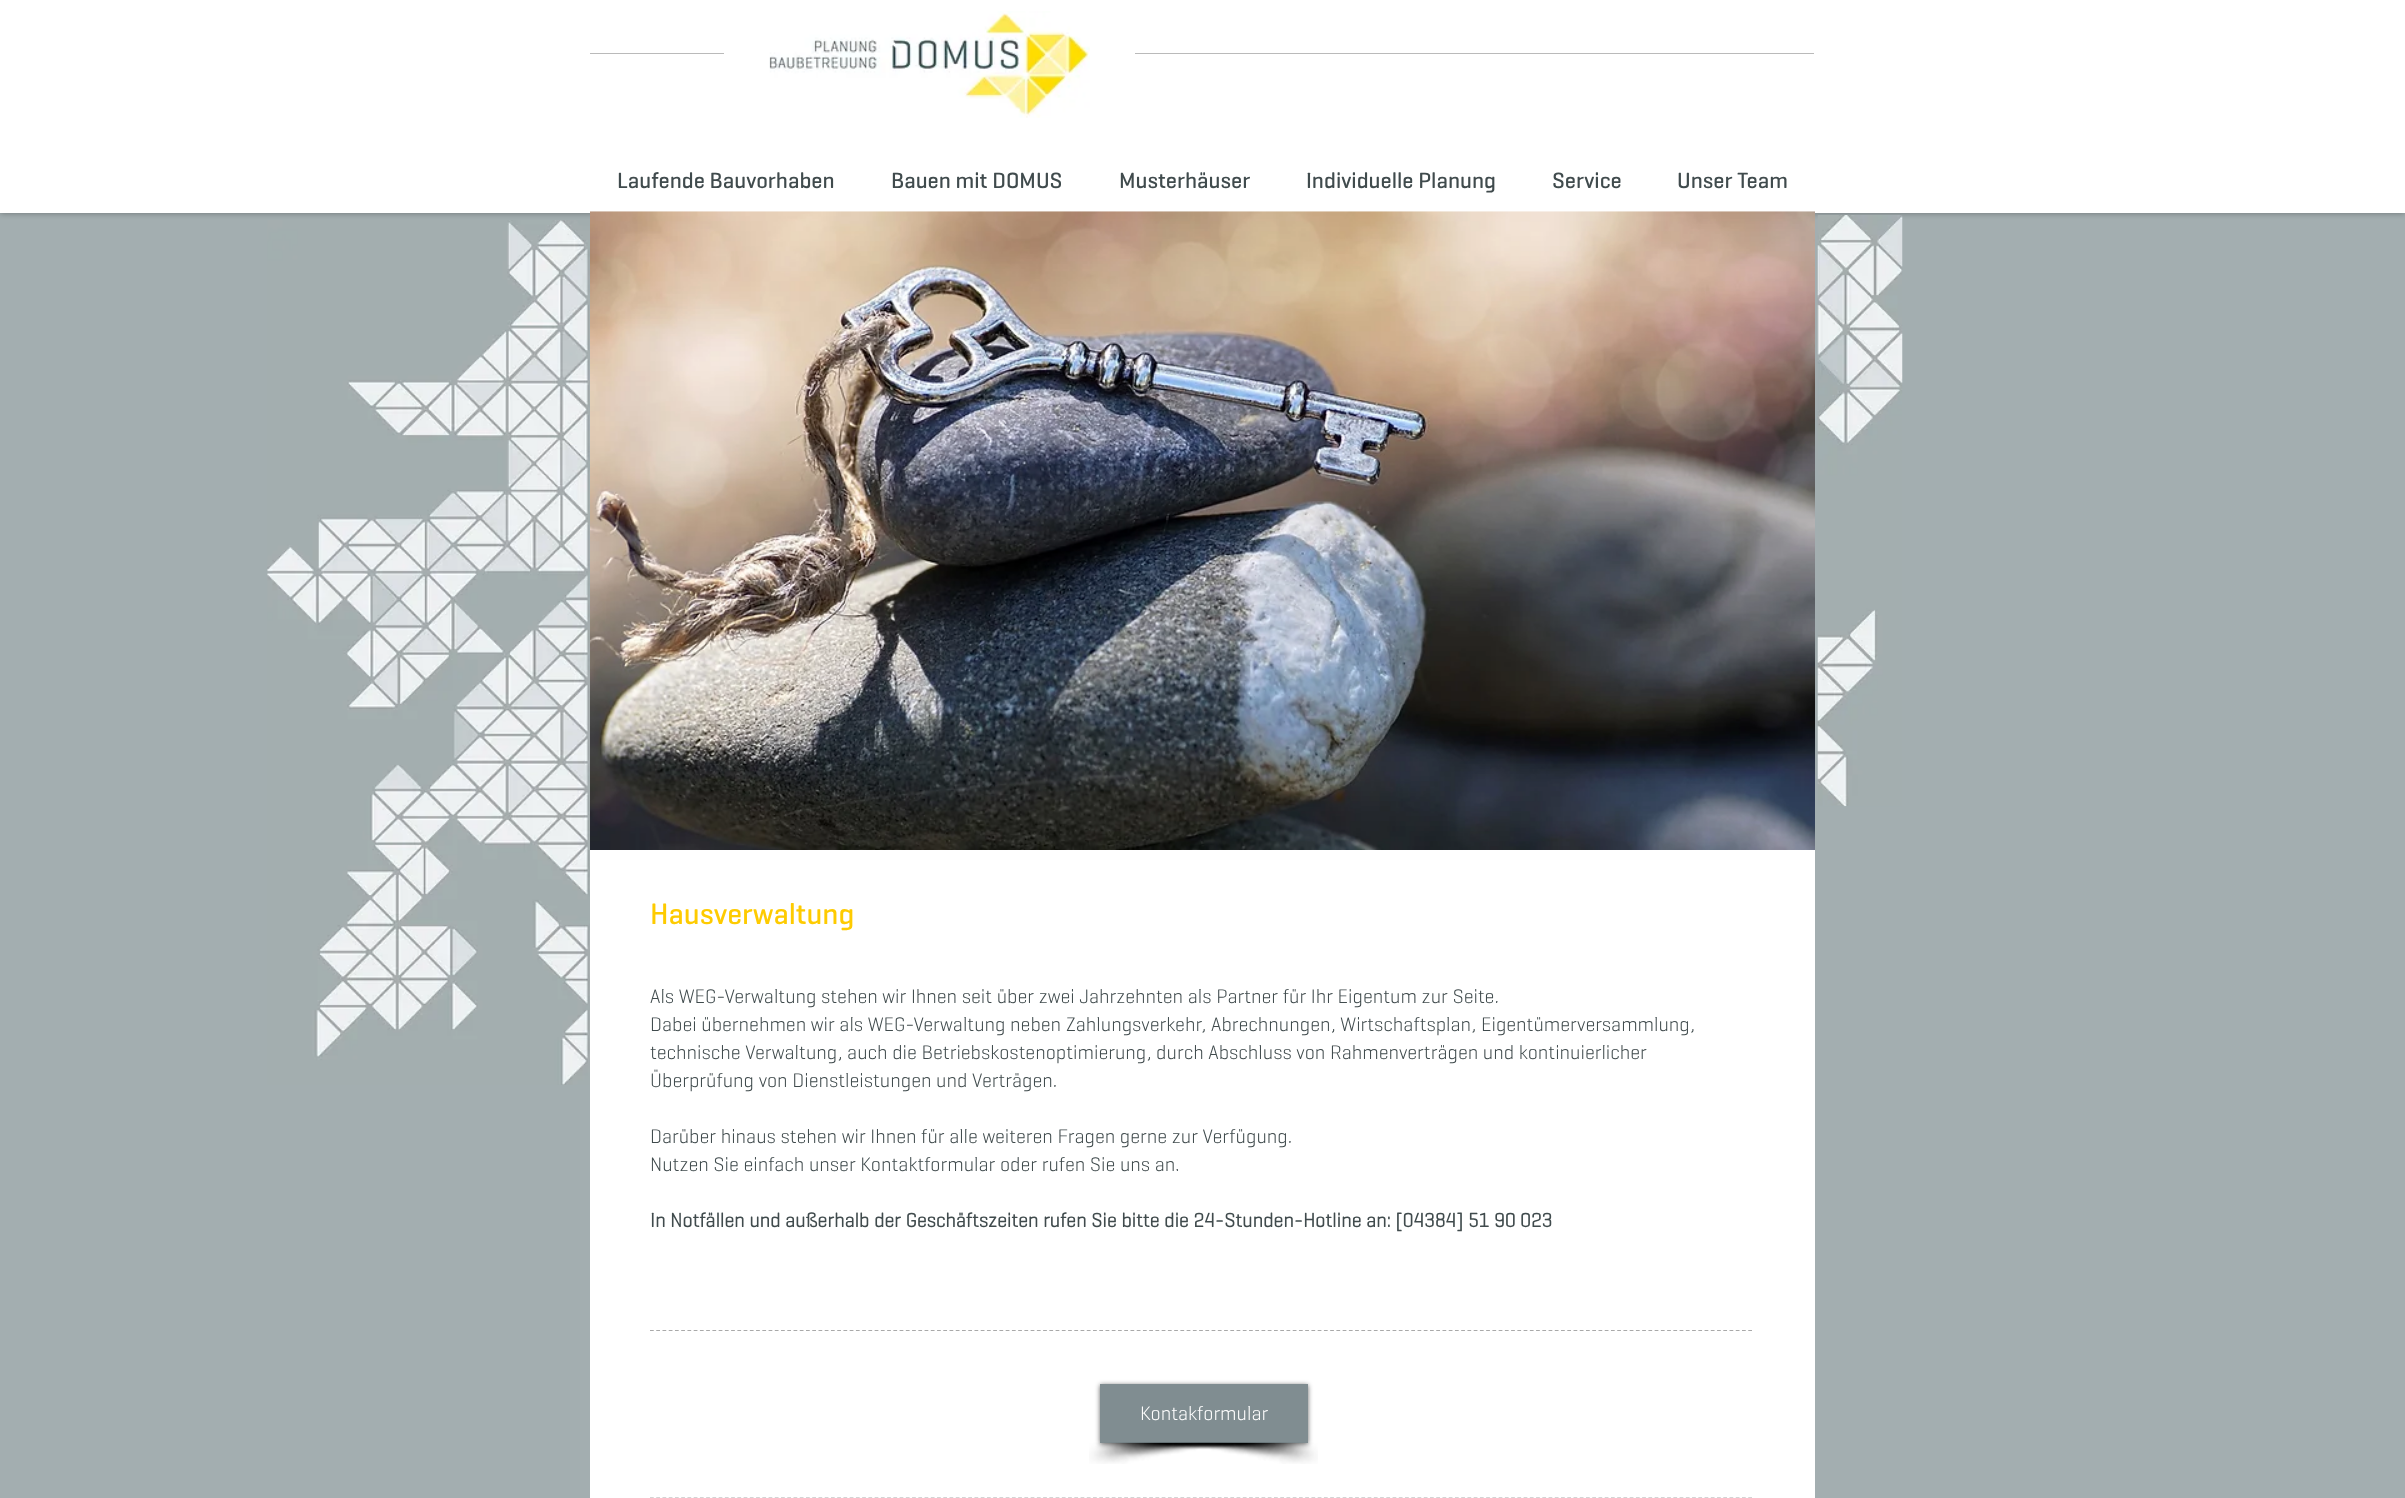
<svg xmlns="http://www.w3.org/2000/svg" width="2405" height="1498">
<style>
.a{font:500 22.5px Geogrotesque;fill:#404b4d}
.b{font:500 30px Geogrotesque;fill:#fecb00}
.c{font:300 20px Geogrotesque;fill:#404b4d}
.d{font:bold 20px Geogrotesque;fill:#404b4d}
.e{font:300 20px Geogrotesque;fill:#fff}
</style>
<defs>
<clipPath id="clip1"><path d="M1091 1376h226v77h-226zm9 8h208v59h-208z" clip-rule="evenodd"/></clipPath>
</defs>
<rect width="100%" height="100%" fill="#a3aeb0"/>
<path fill="#00000059" filter="blur(3px)" d="M0 0h2405v213H0z"/>
<path fill="#fff" d="M0 0h2405v213H0z"/>
<path fill="#bababa" d="M590 53h134v1H590z"/>
<image href="1.png" x="769" y="11" width="321" height="107"/>
<path fill="#bababa" d="M1135 53h679v1H1135z"/>
<path fill="#fff" d="M590 850h1225v648H590z"/>
<image href="2.png" x="267" y="220" width="323" height="865"/>
<image href="3.png" x="590" y="211" width="1225" height="639"/>
<image href="4.png" x="1817" y="215" width="86" height="592"/>
<path fill="none" stroke="#a9a9a9" stroke-width="1.2" stroke-dasharray="3.75 2.49" d="M650 1330.5h1102.5"/>
<image href="5.png" x="1089" y="1442" width="186" height="22"/>
<image href="6.png" x="1144" y="1442" width="174" height="22"/>
<g clip-path="url(#clip1)">
<path fill="#00000099" filter="blur(2.5px)" d="M1100 1385h208v59H1100z"/>
</g>
<path fill="#607176cc" d="M1100 1384h208v59H1100z"/>
<path fill="none" stroke="#a9a9a9" stroke-width="1.2" stroke-dasharray="3.75 2.49" d="M650 1498h1102.5"/>
<text class="a" x="617" y="188">Laufende Bauvorhaben</text>
<text class="a" x="891" y="188">Bauen mit DOMUS</text>
<text class="a" x="1119" y="188">Musterhäuser</text>
<text class="a" x="1306" y="188">Individuelle Planung</text>
<text class="a" x="1552" y="188">Service</text>
<text class="a" x="1677" y="188">Unser Team</text>
<text class="b" x="650" y="924">Hausverwaltung</text>
<text class="c" x="650" y="1003">Als WEG-Verwaltung stehen wir Ihnen seit über zwei Jahrzehnten als Partner für Ihr Eigentum zur Seite.</text>
<text class="c" x="650" y="1031">Dabei übernehmen wir als WEG-Verwaltung neben Zahlungsverkehr, Abrechnungen, Wirtschaftsplan, Eigentümerversammlung,</text>
<text class="c" x="650" y="1059">technische Verwaltung, auch die Betriebskostenoptimierung, durch Abschluss von Rahmenverträgen und kontinuierlicher</text>
<text class="c" x="650" y="1087">Überprüfung von Dienstleistungen und Verträgen.</text>
<text class="c" x="650" y="1143">Darüber hinaus stehen wir Ihnen für alle weiteren Fragen gerne zur Verfügung.</text>
<text class="c" x="650" y="1171">Nutzen Sie einfach unser Kontaktformular oder rufen Sie uns an.</text>
<text class="d" x="650" y="1227">In Notfällen und außerhalb der Geschäftszeiten rufen Sie bitte die 24-Stunden-Hotline an: [04384] 51 90 023</text>
<text class="e" x="1140" y="1420">Kontakformular</text>
</svg>
